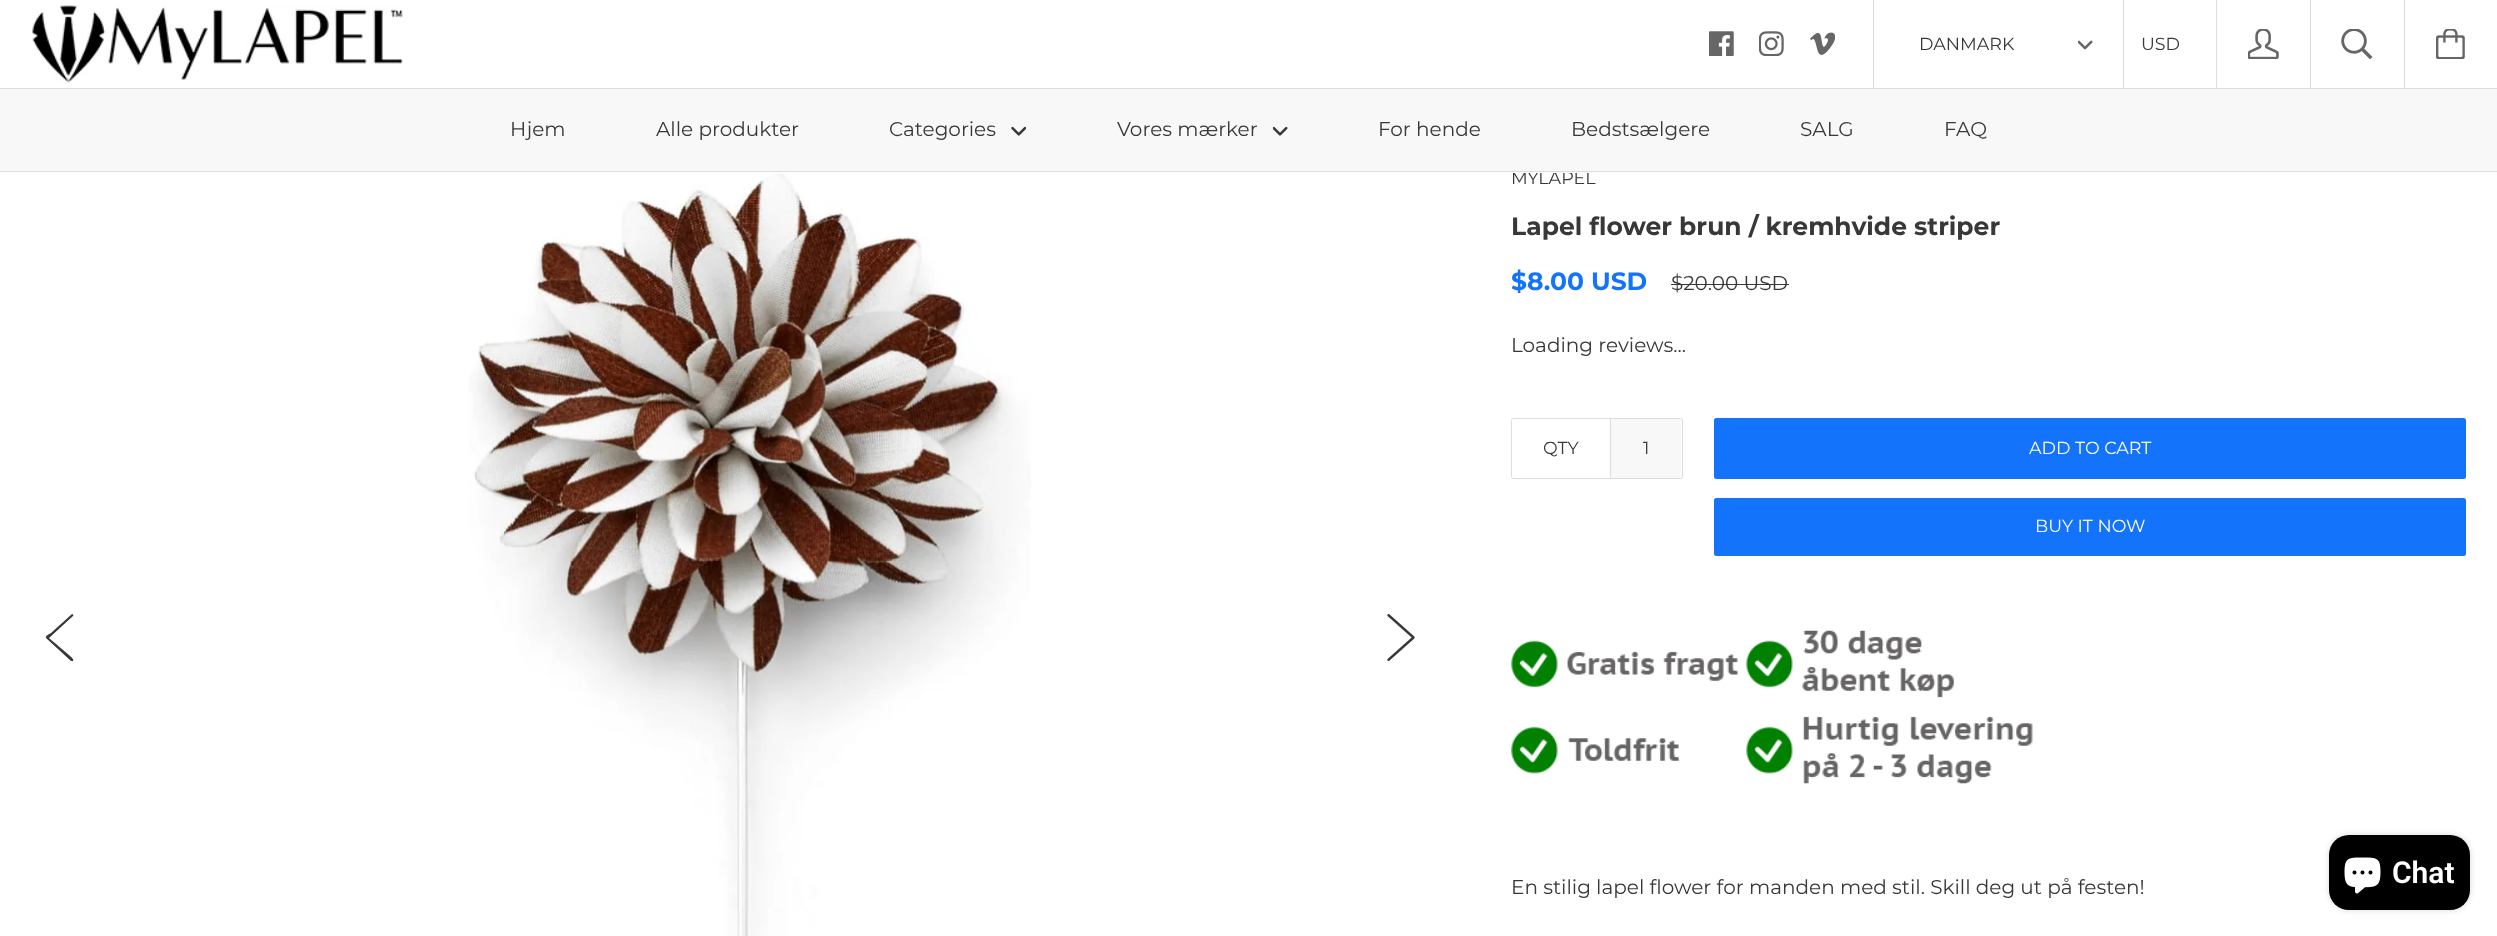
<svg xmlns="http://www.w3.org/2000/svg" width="2497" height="936">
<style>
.a{font:17.5px Montserrat;fill:#383838}
.b{font:20px Montserrat;fill:#383838}
.c{font:bold 25px Montserrat;fill:#383838}
.d{font:bold 25px Montserrat;fill:#1473fb}
.e{font:17.5px Montserrat;fill:#fff}
.f{font:600 30px Roboto;fill:#fff}
</style>
<rect width="100%" height="100%" fill="#fff"/>
<image href="1.png" x="32" y="5" width="371" height="78"/>
<image href="2.png" x="1709" y="31" width="25" height="25"/>
<image href="3.png" x="1759" y="31" width="25" height="25"/>
<image href="4.png" x="1810" y="32" width="25" height="23"/>
<path fill="#ddd" d="M1873 0h1v88H1873z"/>
<image href="5.png" x="2078" y="40" width="15" height="10"/>
<path fill="#ddd" d="M2123 0h1v88H2123z"/>
<path fill="#ddd" d="M2216 0h1v88H2216z"/>
<image href="6.png" x="2248" y="29" width="31" height="30"/>
<path fill="#ddd" d="M2310 0h1v88H2310z"/>
<image href="7.png" x="2341" y="29" width="32" height="30"/>
<path fill="#ddd" d="M2404 0h1v88H2404z"/>
<image href="8.png" x="2436" y="29" width="29" height="30"/>
<path fill="#f8f8f8" d="M0 89h2497v82H0z"/>
<path fill="#ddd" d="M0 88h2497v1H0z"/>
<image href="9.png" x="1011" y="126" width="15" height="10"/>
<image href="10.png" x="1273" y="126" width="15" height="10"/>
<path fill="#383838" d="M73 616l-24 22c21 18 26 21 24 23h-2l-25-23c-1-2 3-4 5-5l21-19c1 0 2 2 1 2z"/>
<image href="11.png" x="468" y="173" width="563" height="763"/>
<image href="12.png" x="1387" y="614" width="28" height="47"/>
<path fill="#383838" d="M1671 284h118v1H1671z"/>
<rect fill="none" stroke="#ddd" x="1511.5" y="418.5" width="171" height="60" rx="2"/>
<path fill="#ddd" d="M1610 419h1v59H1610z"/>
<rect fill="#f8f8f8" x="1611" y="419" width="70" height="59" rx="2.5"/>
<rect fill="#1473fb" x="1714" y="418" width="752" height="61" rx="2.5"/>
<rect fill="#1473fb" x="1714" y="498" width="752" height="58" rx="2.5"/>
<image href="13.png" x="1511" y="630" width="522" height="154"/>
<rect fill="#00000026" filter="blur(3px)" x="2329" y="835" width="141" height="75" rx="20"/>
<rect fill="#000" x="2329" y="835" width="141" height="75" rx="20"/>
<image href="14.png" x="2344" y="857" width="37" height="37"/>
<text class="a" x="1919" y="50">DANMARK</text>
<text class="a" x="2141" y="50">USD</text>
<text class="b" x="510" y="136">Hjem</text>
<text class="b" x="656" y="136">Alle produkter</text>
<text class="b" x="889" y="136">Categories</text>
<text class="b" x="1117" y="136">Vores mærker</text>
<text class="b" x="1378" y="136">For hende</text>
<text class="b" x="1571" y="136">Bedstsælgere</text>
<text class="b" x="1800" y="136">SALG</text>
<text class="b" x="1944" y="136">FAQ</text>
<text class="a" x="1511" y="184">MYLAPEL</text>
<path fill="#fff" d="M1513 171h76v2H1513z"/>
<path fill="#ddd" d="M0 171h2497v1H0z"/>
<text class="c" x="1511" y="235">Lapel flower brun / kremhvide striper</text>
<text class="d" x="1511" y="290">$8.00 USD</text>
<text class="b" x="1671" y="290">$20.00 USD</text>
<text class="b" x="1511" y="352">Loading reviews...</text>
<text class="a" x="1543" y="454">QTY</text>
<text class="a" x="1643" y="454">1</text>
<text class="e" x="2029" y="454">ADD TO CART</text>
<text class="e" x="2035" y="532">BUY IT NOW</text>
<text class="b" x="1511" y="894">En stilig lapel flower for manden med stil. Skill deg ut på festen!</text>
<text class="f" x="2392" y="883">Chat</text>
</svg>
